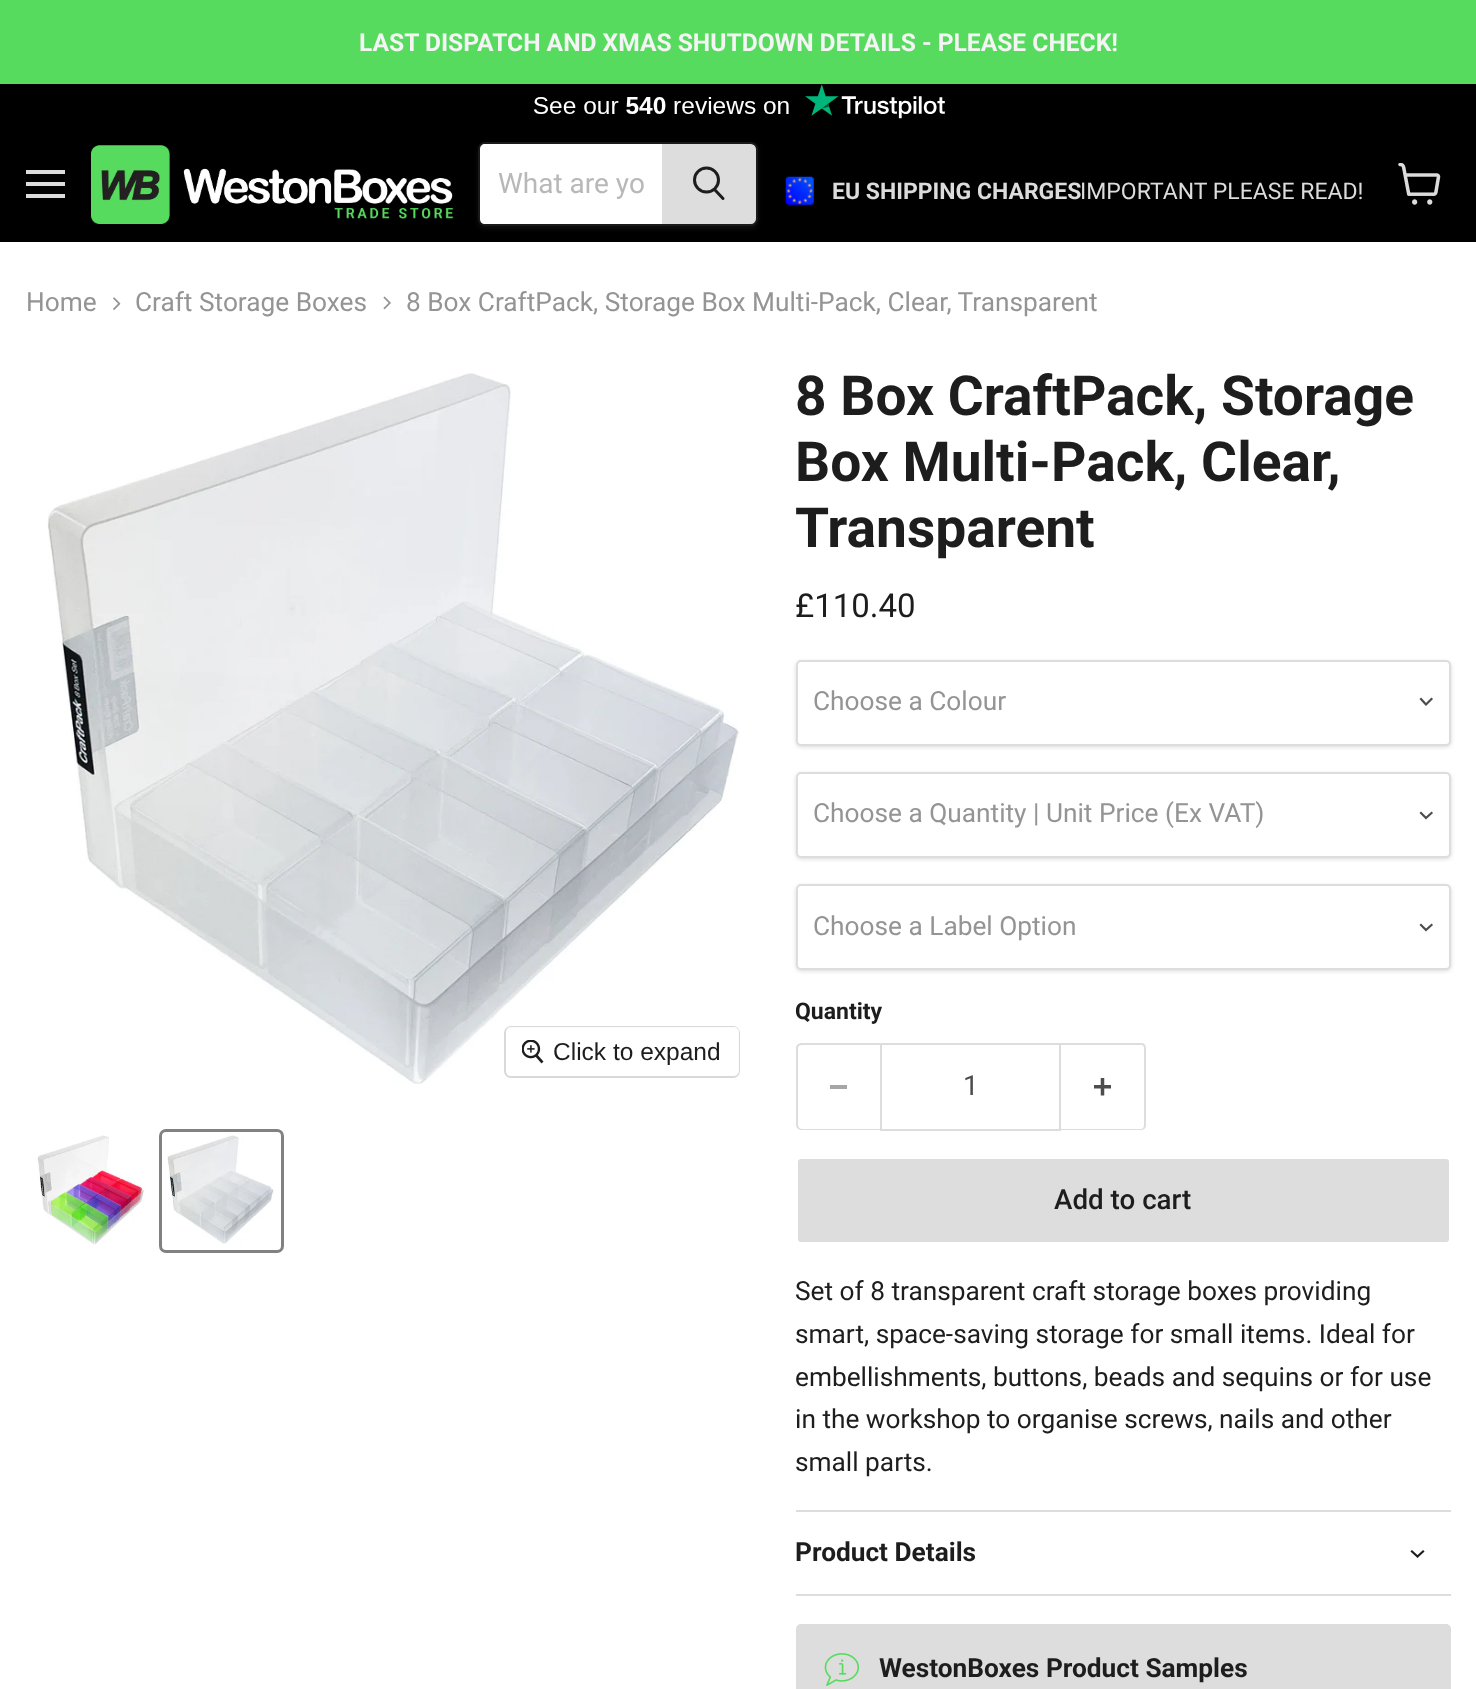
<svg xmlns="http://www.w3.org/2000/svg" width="1476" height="1689">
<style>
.a{font:bold 24.6px Roboto;fill:#f4f4f4}
.b{font:28px Roboto;fill:#b8b8b8}
.c{font:bold 23px Roboto;fill:#dcdcdc}
.d{font:23px Roboto;fill:#dcdcdc}
.e{font:26.25px Roboto;fill:#949494}
.f{font:24.5px Liberation Sans;fill:#1d1d1d}
.g{font:bold 55.1px Roboto;fill:#1d1d1d}
.h{font:33px Roboto;fill:#1d1d1d}
.i{font:bold 23px Roboto;fill:#1d1d1d}
.j{font:27.75px Roboto;fill:#4d4d4d}
.k{font:500 27.75px Roboto;fill:#1d1d1d}
.l{font:26.25px Roboto;fill:#1d1d1d}
.m{font:bold 26.25px Roboto;fill:#1d1d1d}
</style>
<defs>
<clipPath id="clip1"><path d="M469 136h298v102h-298zm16 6h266c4 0 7 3 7 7v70c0 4-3 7-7 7h-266c-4 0-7-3-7-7v-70c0-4 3-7 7-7z" clip-rule="evenodd"/></clipPath>
</defs>
<rect width="100%" height="100%" fill="#fff"/>
<path fill="#57db5f" d="M0 0h1476v84H0z"/>
<path fill="#000" d="M0 84h1476v158H0z"/>
<image href="1.png" x="533" y="84" width="412" height="35"/>
<path fill="#dcdcdc" d="M26 170h39v4H26z"/>
<path fill="#dcdcdc" d="M26 182h39v4H26z"/>
<path fill="#dcdcdc" d="M26 194h39v4H26z"/>
<image href="2.png" x="91" y="145" width="363" height="79"/>
<g clip-path="url(#clip1)">
<rect fill="#8080801c" filter="blur(2.5px)" x="478" y="145" width="280" height="84" rx="7"/>
</g>
<rect fill="none" stroke="#80808033" stroke-width="2" x="479" y="143" width="278" height="82" rx="6"/>
<path fill="#fff" d="M485 144h177v80h-177c-3 0-5-2-5-5v-70c0-3 2-5 5-5z"/>
<path fill="#ddd" stroke="#ddd" stroke-width="2" d="M663 145h88c2 0 4 2 4 4v70c0 2-2 4-4 4h-88z"/>
<path fill="none" stroke="#1d1d1d" stroke-width="3" stroke-linecap="round" d="M723 198.5l-8-8.5"/>
<circle fill="none" stroke="#1d1d1d" stroke-width="3" cx="706.5" cy="180" r="12"/>
<image href="3.png" x="785" y="176" width="29" height="29"/>
<image href="4.png" x="1398" y="163" width="43" height="42"/>
<image href="5.png" x="113" y="297" width="8" height="13"/>
<image href="6.png" x="383" y="296" width="8" height="14"/>
<image href="7.png" x="47" y="373" width="693" height="711"/>
<rect fill="none" stroke="#d9d9d9" stroke-width="2" x="505" y="1027" width="234" height="50" rx="6"/>
<rect fill="#ffffffe6" x="506" y="1027" width="233" height="49" rx="5"/>
<image href="8.png" x="522" y="1040" width="22" height="24"/>
<image href="9.png" x="37" y="1135" width="108" height="110"/>
<rect fill="none" stroke="#818181" stroke-width="3" x="160.5" y="1130.5" width="122" height="121" rx="5.5"/>
<image href="10.png" x="167" y="1135" width="107" height="109"/>
<rect fill="#00000026" filter="blur(2px)" x="796" y="662" width="655" height="85" rx="5"/>
<rect fill="#fff" stroke="#ddd" stroke-width="2" x="797" y="661" width="653" height="84" rx="4"/>
<path fill="none" stroke="#4d4d4d" stroke-width="2.2" stroke-linecap="square" d="M1426 704.5l5.5-5.5m-5.5 5.5l-5-5.5"/>
<rect fill="#00000026" filter="blur(2px)" x="796" y="774" width="655" height="85" rx="5"/>
<rect fill="#fff" stroke="#ddd" stroke-width="2" x="797" y="773" width="653" height="84" rx="4"/>
<path fill="none" stroke="#4d4d4d" stroke-width="2.2" stroke-linecap="square" d="M1426 818l5.5-5m-5.5 5l-5-5"/>
<rect fill="#00000026" filter="blur(2px)" x="796" y="886" width="655" height="85" rx="5"/>
<rect fill="#fff" stroke="#ddd" stroke-width="2" x="797" y="885" width="653" height="84" rx="4"/>
<path fill="none" stroke="#4d4d4d" stroke-width="2.2" stroke-linecap="square" d="M1426 930l5.5-5m-5.5 5l-5-5"/>
<path fill="#ddd" fill-rule="evenodd" d="M802 1043h78v87h-78c-3 0-6-2-6-5v-77c0-3 3-5 6-5zm0 2h78v84h-78c-2 0-4-2-4-4v-77c0-2 2-3 4-3z"/>
<path fill="#a6a6a6" d="M830 1085h17v4H830z"/>
<path fill="none" stroke="#ddd" stroke-width="2" d="M881 1044h179v86H881z"/>
<path fill="#ddd" fill-rule="evenodd" d="M1060 1043h81c3 0 5 2 5 5v77c0 3-2 5-5 5h-81zm0 2h81c2 0 3 1 3 3v77c0 2-1 4-3 4h-81z"/>
<image href="11.png" x="1094" y="1078" width="17" height="18"/>
<rect fill="#ddd" stroke="#fff" stroke-width="2" x="797" y="1158" width="653" height="85" rx="4"/>
<path fill="#ddd" d="M796 1510h655v2H796z"/>
<path fill="#ddd" d="M796 1594h655v2H796z"/>
<path fill="none" stroke="#1d1d1d" stroke-width="2.2" stroke-linecap="square" d="M1417.5 1556.5l5.5-5m-5.5 5l-5.5-5"/>
<rect fill="#ddd" x="796" y="1624" width="655" height="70" rx="5"/>
<image href="12.png" x="824" y="1653" width="35" height="33"/>
<text class="a" x="359" y="51">LAST DISPATCH AND XMAS SHUTDOWN DETAILS - PLEASE CHECK!</text>
<text class="b" x="498" y="193">What are yo</text>
<text class="c" x="832" y="199">EU SHIPPING CHARGES</text>
<text class="d" x="1080" y="199">IMPORTANT PLEASE READ!</text>
<text class="e" x="26" y="311">Home</text>
<text class="e" x="135" y="311">Craft Storage Boxes</text>
<text class="e" x="406" y="311">8 Box CraftPack, Storage Box Multi-Pack, Clear, Transparent</text>
<text class="f" x="553" y="1060">Click to expand</text>
<text class="g" x="795" y="415">8 Box CraftPack, Storage</text>
<text class="g" x="795" y="481">Box Multi-Pack, Clear,</text>
<text class="g" x="795" y="547">Transparent</text>
<text class="h" x="795" y="617">£110.40</text>
<text class="e" x="813" y="710">Choose a Colour</text>
<text class="e" x="813" y="822">Choose a Quantity | Unit Price (Ex VAT)</text>
<text class="e" x="813" y="935">Choose a Label Option</text>
<text class="i" x="795" y="1019">Quantity</text>
<text class="j" x="963" y="1095">1</text>
<text class="k" x="1054" y="1209">Add to cart</text>
<text class="l" x="795" y="1300">Set of 8 transparent craft storage boxes providing</text>
<text class="l" x="795" y="1343">smart, space-saving storage for small items. Ideal for</text>
<text class="l" x="795" y="1386">embellishments, buttons, beads and sequins or for use</text>
<text class="l" x="795" y="1428">in the workshop to organise screws, nails and other</text>
<text class="l" x="795" y="1471">small parts.</text>
<text class="m" x="795" y="1561">Product Details</text>
<text class="m" x="879" y="1677">WestonBoxes Product Samples</text>
</svg>
